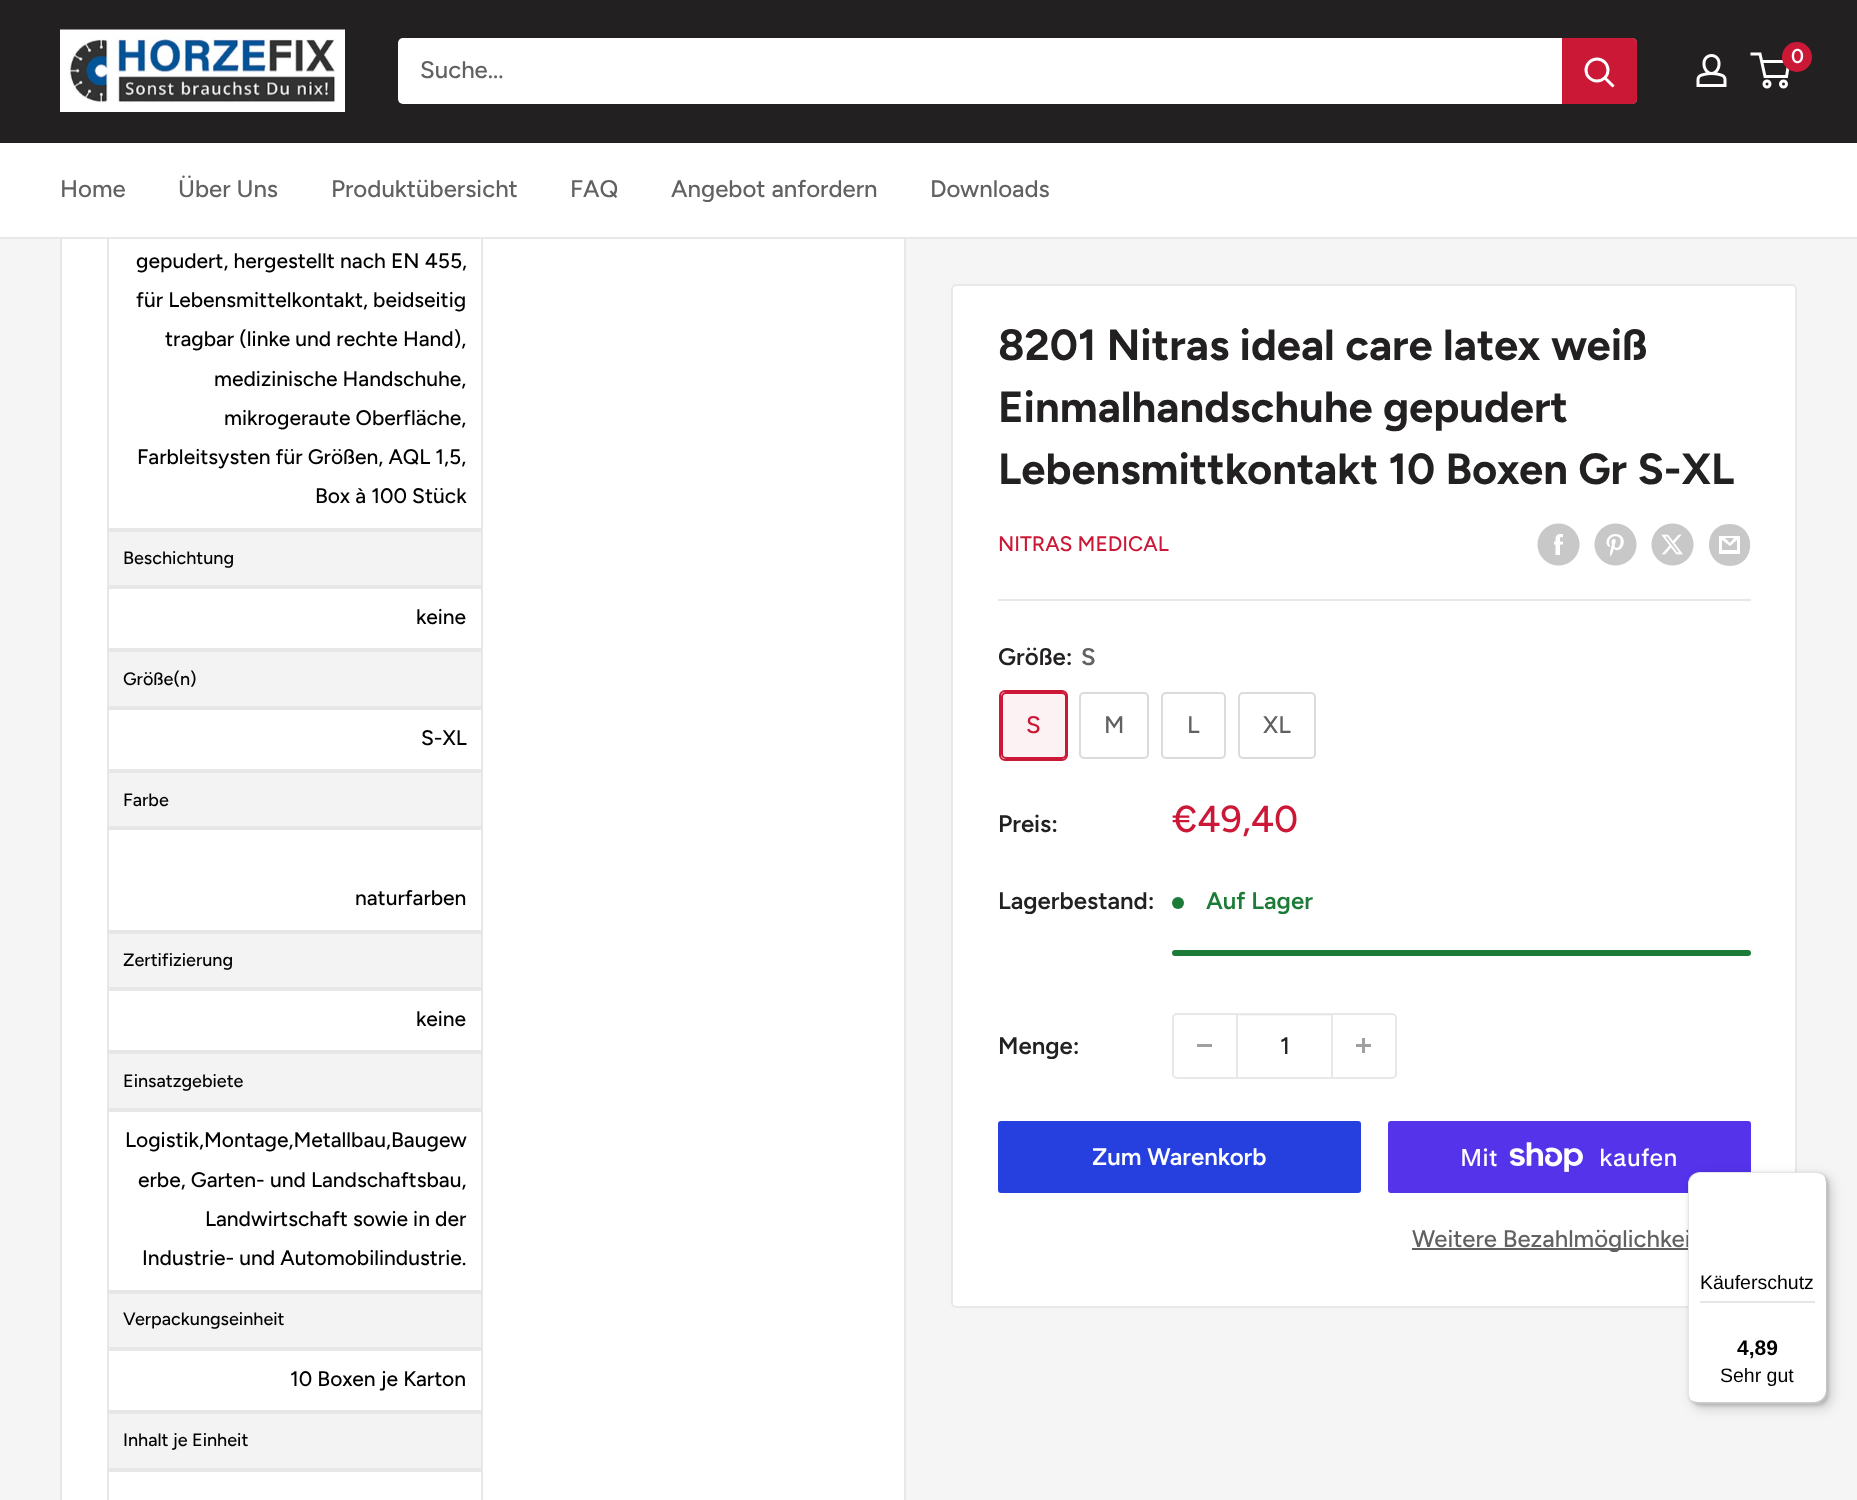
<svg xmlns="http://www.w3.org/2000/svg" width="1857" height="1500">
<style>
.a{font:600 20px Figtree;fill:#fff}
.b{font:500 24px Figtree;fill:#616161}
.c{font:500 21px Figtree;fill:#000}
.d{font:500 18px Figtree;fill:#000}
.e{font:bold 43.5px Figtree;fill:#222021}
.f{font:500 21px Figtree;fill:#cb1836}
.g{font:600 24px Figtree;fill:#222021}
.h{font:600 24px Figtree;fill:#616161}
.i{font:500 24px Figtree;fill:#cb1836}
.j{font:500 37.5px Figtree;fill:#cb1836}
.k{font:600 24px Figtree;fill:#1c7b36}
.l{font:500 24px Figtree;fill:#222021}
.m{font:600 24px Figtree;fill:#fff}
.n{font:500 24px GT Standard;fill:#fff}
.o{font:19.5px Liberation Sans;fill:#000}
.p{font:bold 21px Liberation Sans;fill:#000}
</style>
<rect width="100%" height="100%" fill="#f5f5f5"/>
<path fill="#fff" d="M62 239h842v1261H62z"/>
<path fill="none" stroke="#e8e8e8" stroke-width="2" d="M61 -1h844v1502H61z"/>
<path fill="none" stroke="#e7e7e7" stroke-width="2" d="M108 114h374v415H108z"/>
<path fill="#222021" d="M0 0h1857v143H0z"/>
<image href="1.png" x="60" y="29" width="285" height="83"/>
<image href="2.png" x="1696" y="54" width="31" height="33"/>
<circle fill="none" stroke="#fff" stroke-width="3" cx="1767" cy="84" r="3"/>
<circle fill="none" stroke="#fff" stroke-width="3" cx="1783.5" cy="84" r="3"/>
<path fill="none" stroke="#fff" stroke-width="3" d="M1761.5 61.5h27.5l-2.5 15h-21.5l-5-22.5h-9.5"/>
<circle fill="#cb1836" cx="1797" cy="57" r="15"/>
<rect fill="#fff" x="398" y="38" width="1239" height="66" rx="5"/>
<path fill="#cb1836" d="M1562 38h70c3 0 5 2 5 5v56c0 3-2 5-5 5h-70z"/>
<path fill="none" stroke="#fff" stroke-width="3" stroke-linecap="square" d="M1612.5 85.5l-7.5-7.5"/>
<circle fill="none" stroke="#fff" stroke-width="3" cx="1597" cy="70" r="11"/>
<path fill="#fff" d="M0 143h1857v94H0z"/>
<path fill="#e8e8e8" d="M0 237h1857v2H0z"/>
<path fill="#f3f3f3" stroke="#e7e7e7" stroke-width="2" d="M108 531h374v55H108z"/>
<path fill="none" stroke="#e7e7e7" stroke-width="2" d="M108 588h374v61H108z"/>
<path fill="#f3f3f3" stroke="#e7e7e7" stroke-width="2" d="M108 651h374v56H108z"/>
<path fill="none" stroke="#e7e7e7" stroke-width="2" d="M108 709h374v61H108z"/>
<path fill="#f3f3f3" stroke="#e7e7e7" stroke-width="2" d="M108 772h374v55H108z"/>
<path fill="none" stroke="#e7e7e7" stroke-width="2" d="M108 829h374v102H108z"/>
<path fill="#f3f3f3" stroke="#e7e7e7" stroke-width="2" d="M108 933h374v55H108z"/>
<path fill="none" stroke="#e7e7e7" stroke-width="2" d="M108 990h374v61H108z"/>
<path fill="#f3f3f3" stroke="#e7e7e7" stroke-width="2" d="M108 1053h374v56H108z"/>
<path fill="none" stroke="#e7e7e7" stroke-width="2" d="M108 1111h374v180H108z"/>
<path fill="#f3f3f3" stroke="#e7e7e7" stroke-width="2" d="M108 1293h374v55H108z"/>
<path fill="none" stroke="#e7e7e7" stroke-width="2" d="M108 1350h374v61H108z"/>
<path fill="#f3f3f3" stroke="#e7e7e7" stroke-width="2" d="M108 1413h374v56H108z"/>
<path fill="none" stroke="#e7e7e7" stroke-width="2" d="M108 1471h374v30H108z"/>
<rect fill="#fff" stroke="#e8e8e8" stroke-width="2" x="952" y="285" width="844" height="1022" rx="4"/>
<image href="3.png" x="1537" y="523" width="43" height="43"/>
<image href="4.png" x="1594" y="523" width="43" height="43"/>
<image href="5.png" x="1651" y="523" width="43" height="43"/>
<path fill="#c8c8c8" d="M1730 566c-28 0-28-43 0-42c27 0 27 42 0 42zm-5-28h9l-4 5zm12 2v10h-15v-10l8 6zm3-4h-21v18h21z"/>
<path fill="#e8e8e8" d="M998 599h753v2H998z"/>
<rect fill="none" stroke="#cb1836" stroke-width="2" x="1000" y="691" width="67" height="69" rx="5"/>
<path fill="#cb18360f" d="M1001 692h66v67H1001z"/>
<rect fill="none" stroke="#cb1836" stroke-width="2" x="1002" y="693" width="64" height="65" rx="4"/>
<rect fill="none" stroke="#dbdbdb" stroke-width="2" x="1080" y="693" width="68" height="65" rx="4"/>
<rect fill="none" stroke="#dbdbdb" stroke-width="2" x="1162" y="693" width="63" height="65" rx="4"/>
<rect fill="none" stroke="#dbdbdb" stroke-width="2" x="1239" y="693" width="76" height="65" rx="4"/>
<circle fill="#1c7b36" cx="1178" cy="903" r="6"/>
<rect fill="#1c7b36" x="1172" y="950" width="579" height="6" rx="3"/>
<rect fill="none" stroke="#e8e8e8" stroke-width="2" x="1173" y="1014" width="223" height="64" rx="4"/>
<path fill="#a0a0a0" d="M1197 1044h15v3H1197z"/>
<path fill="#e8e8e866" d="M1238 1015h93v1H1238z"/>
<path fill="#e8e8e8" d="M1331 1014h2v63H1331z"/>
<path fill="#e8e8e8" d="M1236 1014h2v63H1236z"/>
<image href="6.png" x="1356" y="1038" width="15" height="15"/>
<rect fill="#2640e0" x="998" y="1121" width="363" height="72" rx="3"/>
<rect fill="#5433eb" x="1388" y="1121" width="363" height="72" rx="3"/>
<image href="7.png" x="1509" y="1142" width="74" height="30"/>
<path fill="#616161" d="M1412 1248h276v2H1412z"/>
<rect fill="#00000026" filter="blur(6px)" x="1692" y="1176" width="140" height="233" rx="12"/>
<rect fill="#00000026" filter="blur(1.5px)" x="1689" y="1173" width="140" height="233" rx="12"/>
<text class="a" x="1791" y="63">0</text>
<text class="b" x="420" y="78">Suche...</text>
<text class="b" x="60" y="197">Home</text>
<text class="b" x="178" y="197">Über Uns</text>
<text class="b" x="331" y="197">Produktübersicht</text>
<text class="b" x="570" y="197">FAQ</text>
<text class="b" x="671" y="197">Angebot anfordern</text>
<text class="b" x="930" y="197">Downloads</text>
<text class="c" x="136" y="268">gepudert, hergestellt nach EN 455,</text>
<text class="c" x="136" y="307">für Lebensmittelkontakt, beidseitig</text>
<text class="c" x="165" y="346">tragbar (linke und rechte Hand),</text>
<text class="c" x="214" y="386">medizinische Handschuhe,</text>
<text class="c" x="224" y="425">mikrogeraute Oberfläche,</text>
<text class="c" x="137" y="464">Farbleitsysten für Größen, AQL 1,5,</text>
<text class="c" x="315" y="503">Box à 100 Stück</text>
<text class="d" x="123" y="564">Beschichtung</text>
<text class="c" x="416" y="624">keine</text>
<text class="d" x="123" y="685">Größe(n)</text>
<text class="c" x="421" y="745">S-XL</text>
<text class="d" x="123" y="806">Farbe</text>
<text class="c" x="355" y="905">naturfarben</text>
<text class="d" x="123" y="966">Zertifizierung</text>
<text class="c" x="416" y="1026">keine</text>
<text class="d" x="123" y="1087">Einsatzgebiete</text>
<text class="c" x="125" y="1147">Logistik,Montage,Metallbau,Baugew</text>
<text class="c" x="138" y="1187">erbe, Garten- und Landschaftsbau,</text>
<text class="c" x="205" y="1226">Landwirtschaft sowie in der</text>
<text class="c" x="142" y="1265">Industrie- und Automobilindustrie.</text>
<text class="d" x="123" y="1325">Verpackungseinheit</text>
<text class="c" x="290" y="1386">10 Boxen je Karton</text>
<text class="d" x="123" y="1446">Inhalt je Einheit</text>
<text class="e" x="998" y="360">8201 Nitras ideal care latex weiß</text>
<text class="e" x="998" y="422">Einmalhandschuhe gepudert</text>
<text class="e" x="998" y="484">Lebensmittkontakt 10 Boxen Gr S-XL</text>
<text class="f" x="998" y="551">NITRAS MEDICAL</text>
<text class="g" x="998" y="665">Größe:</text>
<text class="h" x="1081" y="665">S</text>
<text class="i" x="1026" y="733">S</text>
<text class="b" x="1104" y="733">M</text>
<text class="b" x="1187" y="733">L</text>
<text class="b" x="1263" y="733">XL</text>
<text class="g" x="998" y="832">Preis:</text>
<text class="j" x="1172" y="832">€49,40</text>
<text class="g" x="998" y="909">Lagerbestand:</text>
<text class="k" x="1206" y="909">Auf Lager</text>
<text class="g" x="998" y="1054">Menge:</text>
<text class="l" x="1280" y="1054">1</text>
<text class="m" x="1092" y="1165">Zum Warenkorb</text>
<text class="n" x="1460" y="1166">Mit</text>
<text class="n" x="1599" y="1166">kaufen</text>
<text class="b" x="1412" y="1247">Weitere Bezahlmöglichkei</text>
<rect fill="#fff" x="1688" y="1172" width="139" height="232" rx="12"/>
<path fill="#0000001a" d="M1701 1173h115c3 0 5 1 7 2c-2-2-5-3-8-3h-115c-7 0-12 5-12 12v208c0 2 1 5 2 7l-1-5v-209c0-7 5-12 12-12z"/>
<path fill="#00000033" d="M1691 1400c2 2 5 4 9 4h115c7 0 12-5 12-12v-208c0-2-1-5-2-6l1 4v208c0 7-6 12-12 12h-116c-3 0-5-1-7-2z"/>
<path fill="#32323233" d="M1692 1401c2 2 5 3 8 3h115c7 0 12-5 12-12v-208c0-3-1-6-3-8c1 2 2 4 2 7v208c0 7-5 12-12 12h-115c-3 0-5-1-7-2z"/>
<path fill="#ffffff4d" d="M1692 1401c2 2 5 3 8 3h115c7 0 12-5 12-12v-208c0-3-1-6-3-8c1 2 2 4 2 7v208c0 7-5 12-12 12h-115c-3 0-5-1-7-2z"/>
<text class="o" x="1700" y="1289">Käuferschutz</text>
<path fill="#e5e5e5" d="M1700 1301h115v2H1700z"/>
<text class="p" x="1737" y="1355">4,89</text>
<text class="o" x="1720" y="1382">Sehr gut</text>
</svg>
